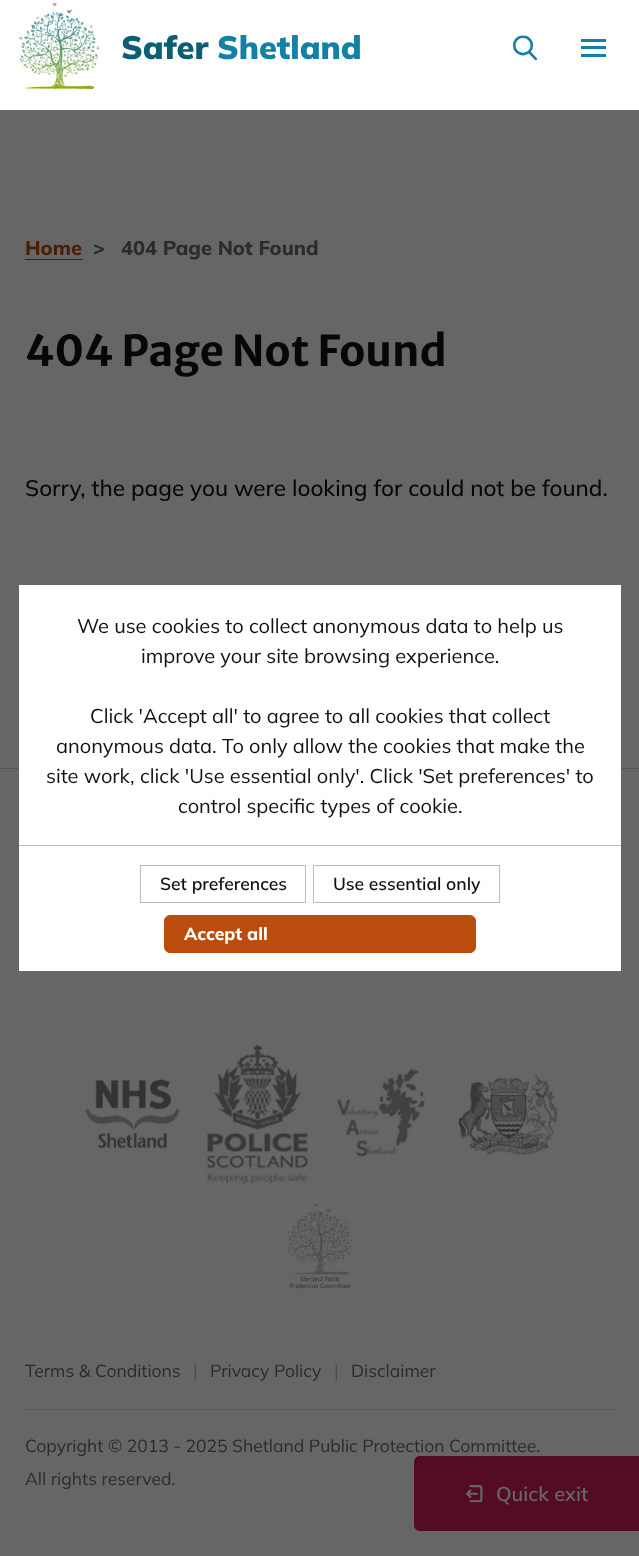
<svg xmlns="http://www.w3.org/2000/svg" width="639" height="1556">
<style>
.a{font:900 32.5px Mulish;fill:#0b5e73}
.b{font:900 32.5px Mulish;fill:#1380a6}
.c{font:800 20px Mulish;fill:#4a1e05}
.d{font:800 20px Mulish;fill:#2b2b2b}
.e{font:bold 42.5px Merriweather Sans;fill:#070707}
.f{font:500 22.5px Mulish;fill:#070707}
.g{font:600 20px Mulish;fill:#666}
.h{font:17.5px Mulish;fill:#2b2b2b}
.i{font:17.5px Mulish;fill:#4c4c4c}
.j{font:20px Mulish;fill:#111}
.k{font:600 17.5px Mulish;fill:#111}
.l{font:800 17.5px Mulish;fill:#fff}
</style>
<rect width="100%" height="100%" fill="#666"/>
<path fill="#fff" d="M0 0h639v110H0z"/>
<image href="1.png" x="18" y="2" width="82" height="88"/>
<image href="2.png" x="513" y="35" width="24" height="25"/>
<path fill="#1380a6" d="M581 46h25v3H581z"/>
<path fill="#1380a6" d="M581 39h25v3H581z"/>
<path fill="#1380a6" d="M581 54h25v3H581z"/>
<path fill="#4a1e05" d="M25 259h58v1H25z"/>
<path fill="#540c26" d="M420 1456h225v75h-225c-3.5 0-6-2.5-6-6v-63c0-3.5 2.5-6 6-6z"/>
<image href="3.png" x="466" y="1485" width="17" height="18"/>
<path fill="#565656" d="M0 768h639v1H0z"/>
<image href="4.png" x="84" y="1078" width="96" height="71"/>
<image href="5.png" x="207" y="1044" width="101" height="140"/>
<image href="6.png" x="335" y="1068" width="90" height="89"/>
<image href="7.png" x="458" y="1074" width="100" height="82"/>
<image href="8.png" x="286" y="1203" width="67" height="86"/>
<path fill="#565656" d="M25 1409h590v1H25z"/>
<path fill="#fff" d="M19 585h602v386H19z"/>
<path fill="#bdbdbd" d="M19 845h602v1H19z"/>
<path fill="none" stroke="#bdbdbd" d="M140.5 865.5h165v37H140.5z"/>
<path fill="none" stroke="#bdbdbd" d="M313.5 865.5h186v37H313.5z"/>
<rect fill="#ba4c0d" stroke="#ba4c0d" x="164.5" y="915.5" width="311" height="37" rx="5.5"/>
<text class="a" x="121" y="59">Safer</text>
<text class="b" x="217" y="59">Shetland</text>
<text class="c" x="25" y="255">Home</text>
<text class="d" x="93" y="255">&gt;</text>
<text class="d" x="121" y="255">404 Page Not Found</text>
<text class="e" x="25" y="366">404 Page Not Found</text>
<text class="f" x="25" y="496">Sorry, the page you were looking for could not be found.</text>
<text class="g" x="496" y="1501">Quick exit</text>
<text class="h" x="25" y="1377">Terms &amp; Conditions</text>
<text class="i" x="193" y="1377">|</text>
<text class="h" x="210" y="1377">Privacy Policy</text>
<text class="i" x="334" y="1377">|</text>
<text class="h" x="351" y="1377">Disclaimer</text>
<text class="h" x="25" y="1452">Copyright © 2013 - 2025 Shetland Public Protection Committee.</text>
<text class="h" x="25" y="1485">All rights reserved.</text>
<text class="j" x="77" y="633">We use cookies to collect anonymous data to help us</text>
<text class="j" x="141" y="663">improve your site browsing experience.</text>
<text class="j" x="90" y="723">Click 'Accept all' to agree to all cookies that collect</text>
<text class="j" x="56" y="753">anonymous data. To only allow the cookies that make the</text>
<text class="j" x="46" y="783">site work, click 'Use essential only'. Click 'Set preferences' to</text>
<text class="j" x="178" y="813">control specific types of cookie.</text>
<text class="k" x="160" y="890">Set preferences</text>
<text class="k" x="333" y="890">Use essential only</text>
<text class="l" x="184" y="940">Accept all</text>
</svg>
